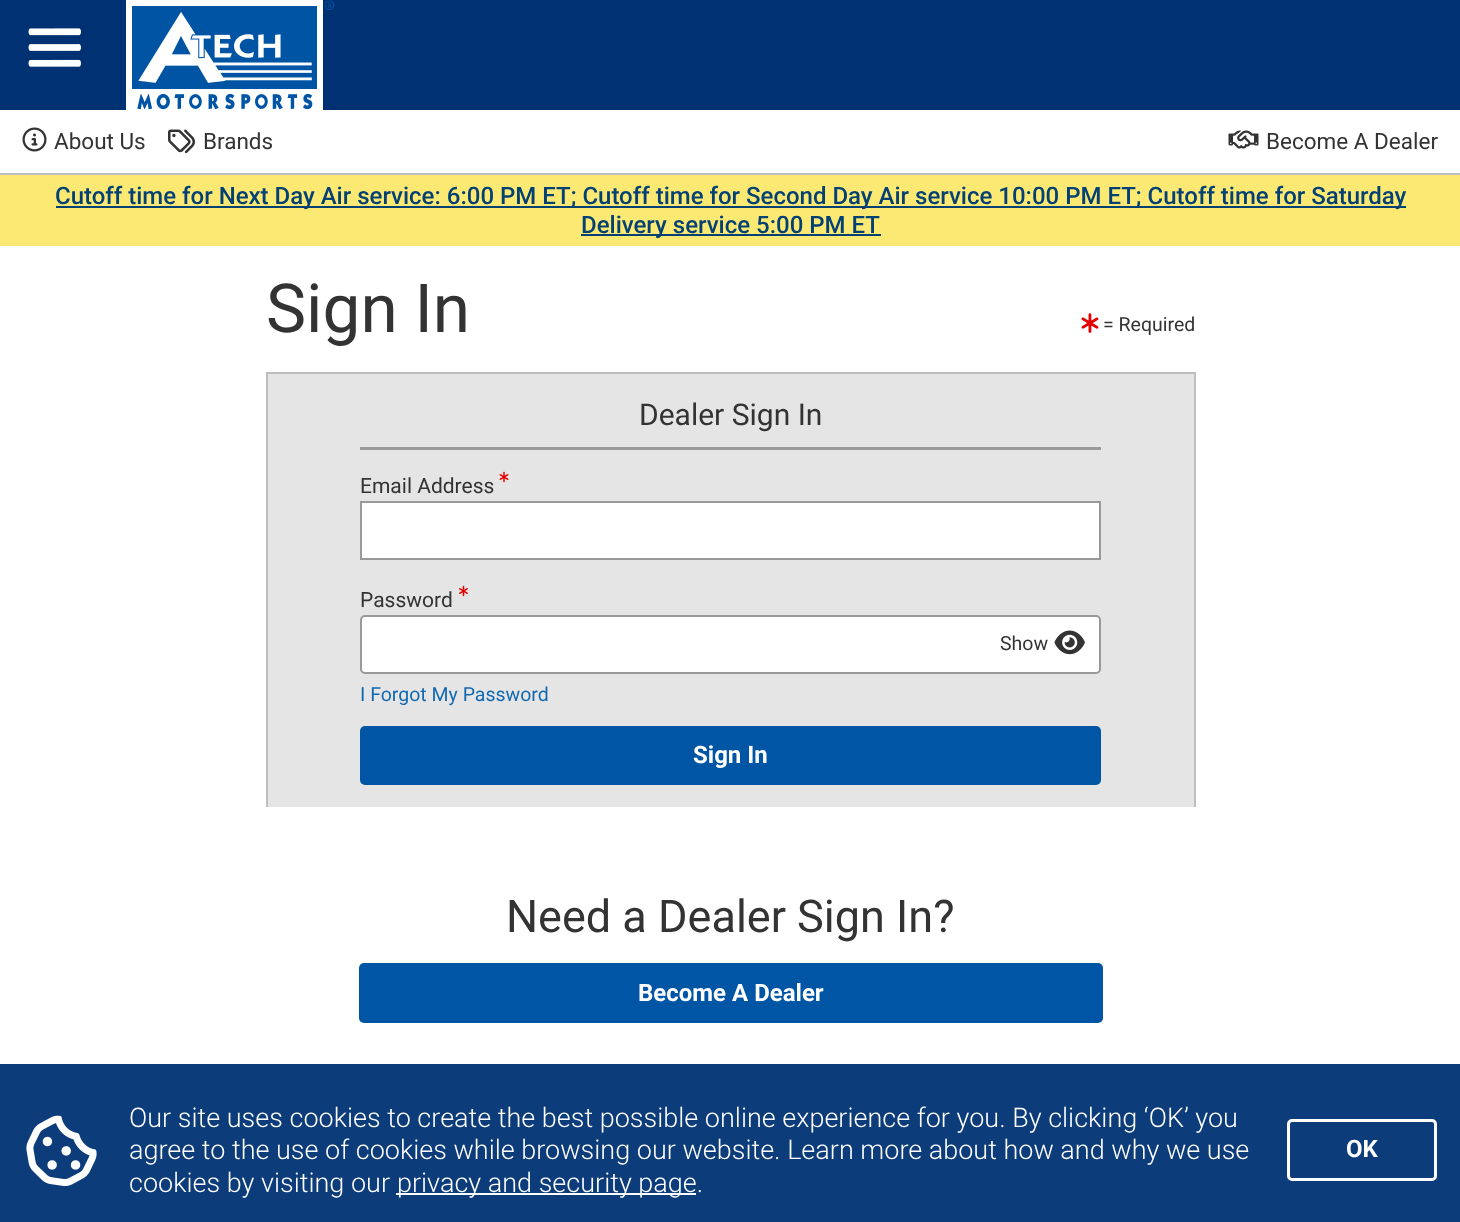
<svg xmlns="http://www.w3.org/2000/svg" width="1460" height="1222">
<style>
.a{font:22.5px Roboto;fill:#333}
.b{font:500 24px Roboto;fill:#034073}
.c{font:67.5px Roboto;fill:#333}
.d{font:19.5px Roboto;fill:#333}
.e{font:30px Roboto;fill:#333}
.f{font:21px Roboto;fill:#333}
.g{font:19.5px Roboto;fill:#1169b2}
.h{font:bold 24px Roboto;fill:#fff}
.i{font:45px Roboto;fill:#333}
.j{font:300 27px Roboto;fill:#fff}
</style>
<rect width="100%" height="100%" fill="#fff"/>
<path fill="#0d3c7a" d="M0 1064h1460v158H0z"/>
<path fill="#003273" d="M0 0h1460v110H0z"/>
<image href="1.png" x="28" y="28" width="53" height="39"/>
<image href="2.png" x="126" y="0" width="209" height="110"/>
<path fill="#bebebe" d="M0 173h1460v2H0z"/>
<image href="3.png" x="22" y="127" width="25" height="25"/>
<image href="4.png" x="168" y="129" width="27" height="25"/>
<image href="5.png" x="1228" y="130" width="31" height="19"/>
<path fill="#fce973" d="M0 175h1460v71H0z"/>
<path fill="#034073" d="M56 206h1350v2H56z"/>
<path fill="#034073" d="M581 234h300v2H581z"/>
<image href="6.png" x="1081" y="313" width="18" height="20"/>
<path fill="#e6e5e5" d="M268 374h926v433H268z"/>
<path fill="#bebebe" d="M266 372h930v2H266z"/>
<path fill="#bebebe" d="M1194 372h2v435H1194z"/>
<path fill="#bebebe" d="M266 372h2v435H266z"/>
<path fill="#999" d="M360 447h741v3H360z"/>
<image href="7.png" x="499" y="471" width="10" height="12"/>
<path fill="#fff" stroke="#999" stroke-width="2" d="M361 502h739v57H361z"/>
<image href="8.png" x="459" y="585" width="9" height="12"/>
<rect fill="#fff" stroke="#999" stroke-width="2" x="361" y="616" width="739" height="57" rx="4"/>
<image href="9.png" x="1054" y="630" width="31" height="25"/>
<rect fill="#0055a5" x="360" y="726" width="741" height="59" rx="5"/>
<rect fill="#0055a5" x="359" y="963" width="744" height="60" rx="5"/>
<image href="10.png" x="26" y="1115" width="71" height="72"/>
<path fill="#fff" d="M396 1193h300v2H396z"/>
<rect fill="none" stroke="#fff" stroke-width="3" x="1288.5" y="1120.5" width="147" height="59" rx="3.5"/>
<text class="a" x="54" y="149">About Us</text>
<text class="a" x="203" y="149">Brands</text>
<text class="a" x="1266" y="149">Become A Dealer</text>
<text class="b" x="55" y="204">Cutoff time for Next Day Air service: 6:00 PM ET; Cutoff time for Second Day Air service 10:00 PM ET; Cutoff time for Saturday</text>
<text class="b" x="581" y="233">Delivery service 5:00 PM ET</text>
<text class="c" x="266" y="332">Sign In</text>
<text class="d" x="1103" y="331">= Required</text>
<text class="e" x="639" y="425">Dealer Sign In</text>
<text class="f" x="360" y="493">Email Address</text>
<text class="f" x="360" y="607">Password</text>
<text class="d" x="1000" y="650">Show</text>
<text class="g" x="360" y="701">I Forgot My Password</text>
<text class="h" x="693" y="763">Sign In</text>
<text class="i" x="506" y="932">Need a Dealer Sign In?</text>
<text class="h" x="638" y="1001">Become A Dealer</text>
<text class="j" x="129" y="1127">Our site uses cookies to create the best possible online experience for you. By clicking ‘OK’ you</text>
<text class="j" x="129" y="1159">agree to the use of cookies while browsing our website. Learn more about how and why we use</text>
<text class="j" x="129" y="1192">cookies by visiting our</text>
<text class="j" x="397" y="1192">privacy and security page.</text>
<text class="h" x="1346" y="1157">OK</text>
</svg>
